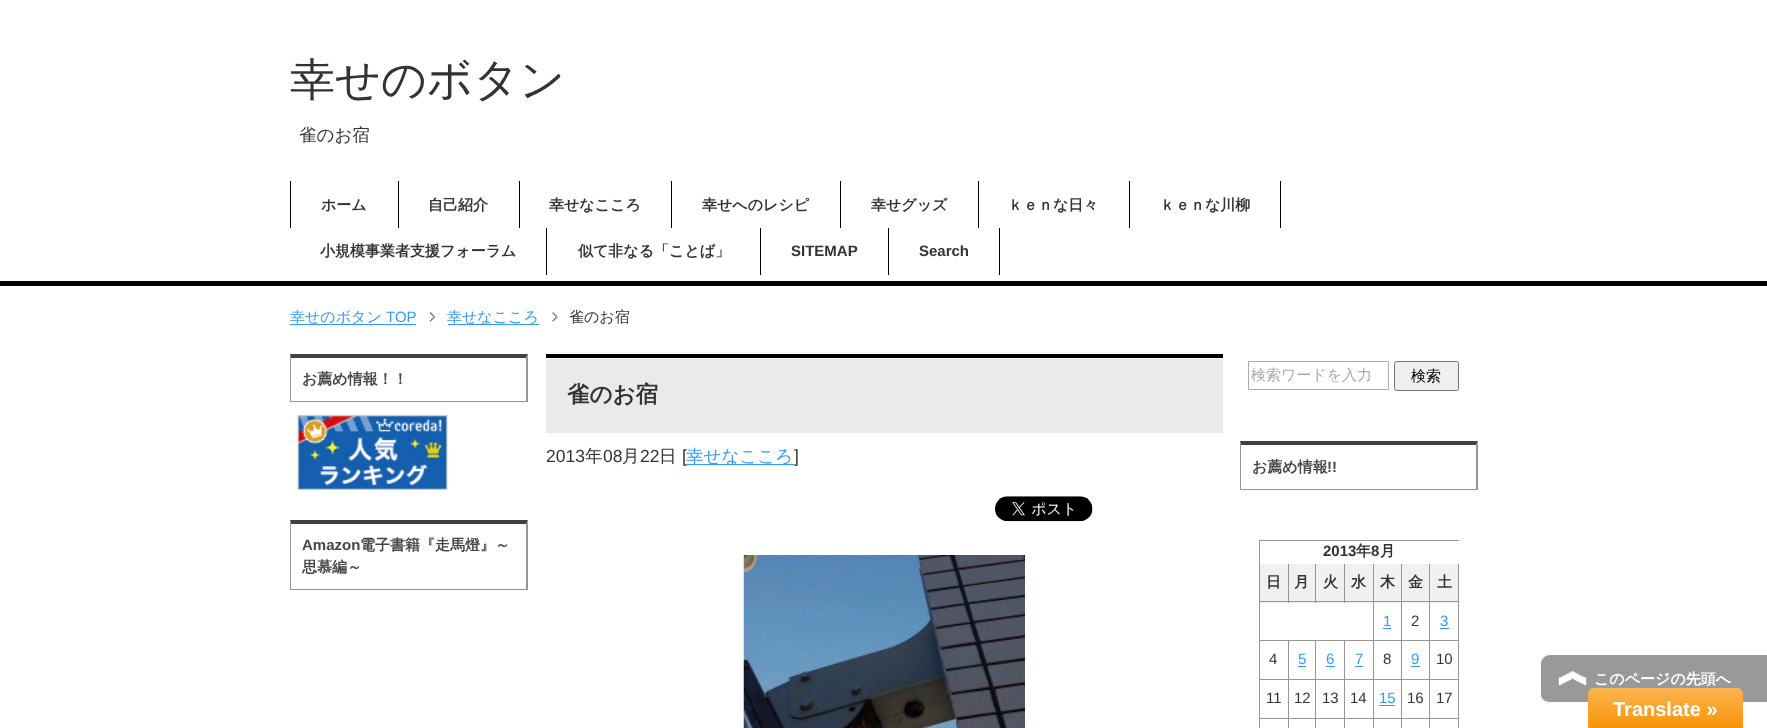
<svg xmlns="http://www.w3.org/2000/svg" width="1767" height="728">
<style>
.a{font:500 45px WenQuanYi Zen Hei;fill:#333}
.b{font:500 17.5px WenQuanYi Zen Hei;fill:#333}
.c{font:bold 15px WenQuanYi Zen Hei;fill:#333}
.d{font:bold 15px Liberation Sans;fill:#333}
.e{font:500 15px WenQuanYi Zen Hei;fill:#39f}
.f{font:15px Liberation Sans;fill:#39f}
.g{font:500 15px WenQuanYi Zen Hei;fill:#333}
.h{font:bold 15px WenQuanYi Zen Hei;fill:#454545}
.i{font:bold 15px Liberation Sans;fill:#454545}
.j{font:bold 22.5px WenQuanYi Zen Hei;fill:#333}
.k{font:17.5px Liberation Sans;fill:#333}
.l{font:500 17.5px WenQuanYi Zen Hei;fill:#39f}
.m{font:500 15px WenQuanYi Zen Hei;fill:#aaa}
.n{font:500 15px WenQuanYi Zen Hei;fill:#000}
.o{font:15px Liberation Sans;fill:#333}
.p{font:bold 15px WenQuanYi Zen Hei;fill:#fff}
.q{font:bold 20px Liberation Sans;fill:#fff}
</style>
<defs>
<linearGradient id="g1" gradientUnits="userSpaceOnUse" x1="1665" y1="688" x2="1665" y2="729"><stop offset="0" stop-color="#fbb450"/><stop offset="1" stop-color="#f89406"/></linearGradient>
</defs>
<rect width="100%" height="100%" fill="#fff"/>
<path fill="#000" d="M0 281h1767v5H0z"/>
<path fill="#000" d="M398 181h1v47H398z"/>
<path fill="#000" d="M290 181h1v47H290z"/>
<path fill="#000" d="M519 181h1v47H519z"/>
<path fill="#000" d="M671 181h1v47H671z"/>
<path fill="#000" d="M840 181h1v47H840z"/>
<path fill="#000" d="M978 181h1v47H978z"/>
<path fill="#000" d="M1129 181h1v47H1129z"/>
<path fill="#000" d="M1280 181h1v47H1280z"/>
<path fill="#000" d="M546 228h1v47H546z"/>
<path fill="#000" d="M760 228h1v47H760z"/>
<path fill="#000" d="M888 228h1v47H888z"/>
<path fill="#000" d="M999 228h1v47H999z"/>
<path fill="#39f" d="M290 324h126v1H290z"/>
<image href="1.png" x="430" y="312" width="5" height="10"/>
<path fill="#39f" d="M448 324h91v1H448z"/>
<image href="2.png" x="552" y="312" width="6" height="10"/>
<path fill="#414141" d="M290 354h238l-2 4h-235z"/>
<path fill="#959595" d="M528 354v48l-2-1v-43z"/>
<path fill="#959595" d="M290 401h238v1H290z"/>
<path fill="#959595" d="M290 402v-48l1 4v43z"/>
<image href="3.png" x="297" y="415" width="151" height="75"/>
<path fill="#414141" d="M290 520h238l-2 4h-235z"/>
<path fill="#959595" d="M528 520v70l-2-1v-65z"/>
<path fill="#959595" d="M290 589h238v1H290z"/>
<path fill="#959595" d="M290 590v-70l1 4v65z"/>
<path fill="#eaeaea" d="M546 358h677v75H546z"/>
<image href="4.png" x="546" y="358" width="677" height="1"/>
<path fill="#000" d="M546 354h677v4H546z"/>
<image href="5.png" x="995" y="496" width="98" height="26"/>
<image href="6.png" x="743" y="555" width="282" height="173"/>
<path fill="none" stroke="#aaa" d="M1248.5 361.5h140v28H1248.5z"/>
<rect fill="#efefef" stroke="#767676" x="1394.5" y="361.5" width="64" height="29" rx="2"/>
<path fill="#414141" d="M1240 441h238l-2 4h-235z"/>
<path fill="#959595" d="M1478 441v49l-2-1v-44z"/>
<path fill="#959595" d="M1240 489h238v1H1240z"/>
<path fill="#959595" d="M1240 490v-49l1 4v44z"/>
<path fill="#959595" d="M1259 540h200v1H1259z"/>
<path fill="#959595" d="M1259 540h1v188H1259z"/>
<path fill="#f0f0f0" d="M1260 564h28v39H1260z"/>
<path fill="#959595" d="M1288 564h1v39H1288z"/>
<path fill="#959595" d="M1260 601h29v1H1260z"/>
<path fill="#f0f0f0" d="M1289 564h26v39H1289z"/>
<path fill="#959595" d="M1315 564h1v39H1315z"/>
<path fill="#959595" d="M1289 601h27v1H1289z"/>
<path fill="#f0f0f0" d="M1316 564h28v39H1316z"/>
<path fill="#959595" d="M1344 564h1v39H1344z"/>
<path fill="#959595" d="M1316 601h29v1H1316z"/>
<path fill="#f0f0f0" d="M1345 564h28v39H1345z"/>
<path fill="#959595" d="M1373 564h1v164H1373z"/>
<path fill="#959595" d="M1345 601h29v1H1345z"/>
<path fill="#f0f0f0" d="M1374 564h55v39H1374z"/>
<path fill="#959595" d="M1401 564h1v164H1401z"/>
<path fill="#959595" d="M1374 601h29v1H1374z"/>
<path fill="#959595" d="M1429 564h1v164H1429z"/>
<path fill="#959595" d="M1403 601h27v1H1403z"/>
<path fill="#f0f0f0" d="M1430 564h28v39H1430z"/>
<path fill="#959595" d="M1458 564h1v164H1458z"/>
<path fill="#959595" d="M1430 601h29v1H1430z"/>
<path fill="#39f" d="M1383 628h8v1H1383z"/>
<path fill="#39f" d="M1440 628h9v1H1440z"/>
<path fill="#959595" d="M1260 640h199v1H1260z"/>
<path fill="#959595" d="M1288 641h1v87H1288z"/>
<path fill="#959595" d="M1260 679h29v1H1260z"/>
<path fill="#959595" d="M1315 641h1v87H1315z"/>
<path fill="#959595" d="M1289 679h27v1H1289z"/>
<path fill="#39f" d="M1298 666h8v1H1298z"/>
<path fill="#959595" d="M1344 641h1v87H1344z"/>
<path fill="#959595" d="M1316 679h143v1H1316z"/>
<path fill="#39f" d="M1326 666h9v1H1326z"/>
<path fill="#39f" d="M1355 666h8v1H1355z"/>
<path fill="#39f" d="M1411 666h9v1H1411z"/>
<path fill="#959595" d="M1260 718h199v1H1260z"/>
<path fill="#39f" d="M1379 705h16v1H1379z"/>
<path fill="#999" d="M1550 654h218v50h-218c-5.5 0-10-4.5-10-10v-30c0-5.5 4.5-10 10-10z"/>
<image href="7.png" x="1558" y="671" width="29" height="15"/>
<path fill="#fff" fill-rule="evenodd" d="M1550 654h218v50h-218c-6 0-10-5-10-10v-30c0-6 4-10 10-10zm0 1h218v47h-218c-5 0-9-3-9-8v-30c0-5 4-9 9-9z"/>
<path fill="url(#g1)" d="M1594 688h143c3.5 0 6 2.5 6 6v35h-155v-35c0-3.5 2.5-6 6-6z"/>
<text class="a" x="290" y="95">幸せのボタン</text>
<text class="b" x="299" y="141">雀のお宿</text>
<text class="c" x="321" y="210">ホーム</text>
<text class="c" x="428" y="210">自己紹介</text>
<text class="c" x="549" y="210">幸せなこころ</text>
<text class="c" x="702" y="210">幸せへのレシピ</text>
<text class="c" x="871" y="210">幸せグッズ</text>
<text class="c" x="1008" y="210">ｋｅｎな日々</text>
<text class="c" x="1160" y="210">ｋｅｎな川柳</text>
<text class="c" x="320" y="256">小規模事業者支援フォーラム</text>
<text class="c" x="578" y="256">似て非なる「ことば」</text>
<text class="d" x="791" y="256">SITEMAP</text>
<text class="d" x="919" y="256">Search</text>
<text class="e" x="290" y="322">幸せのボタン</text>
<text class="f" x="386" y="322">TOP</text>
<text class="e" x="447" y="322">幸せなこころ</text>
<text class="g" x="569" y="322">雀のお宿</text>
<text class="h" x="302" y="384">お薦め情報！！</text>
<text class="i" x="302" y="550">Amazon</text>
<text class="h" x="360" y="550">電子書籍『走馬燈』～</text>
<text class="h" x="302" y="572">思慕編～</text>
<text class="j" x="567" y="402">雀のお宿</text>
<text class="k" x="546" y="462">2013</text>
<text class="b" x="585" y="462">年</text>
<text class="k" x="603" y="462">08</text>
<text class="b" x="622" y="462">月</text>
<text class="k" x="640" y="462">22</text>
<text class="b" x="659" y="462">日</text>
<text class="k" x="682" y="462">[</text>
<path fill="#39f" d="M686 464h108v1H686z"/>
<text class="l" x="686" y="462">幸せなこころ</text>
<text class="k" x="794" y="462">]</text>
<text class="m" x="1251" y="380">検索ワードを入力</text>
<text class="n" x="1411" y="381">検索</text>
<text class="h" x="1252" y="472">お薦め情報</text>
<text class="i" x="1327" y="472">!!</text>
<text class="d" x="1323" y="556">2013</text>
<text class="c" x="1356" y="556">年</text>
<text class="d" x="1371" y="556">8</text>
<text class="c" x="1380" y="556">月</text>
<text class="c" x="1266" y="587">日</text>
<text class="c" x="1294" y="587">月</text>
<text class="c" x="1323" y="587">火</text>
<text class="c" x="1351" y="587">水</text>
<text class="c" x="1380" y="587">木</text>
<text class="c" x="1408" y="587">金</text>
<text class="c" x="1437" y="587">土</text>
<text class="f" x="1383" y="626">1</text>
<text class="o" x="1411" y="626">2</text>
<text class="f" x="1440" y="626">3</text>
<text class="o" x="1269" y="664">4</text>
<text class="f" x="1298" y="664">5</text>
<text class="f" x="1326" y="664">6</text>
<text class="f" x="1355" y="664">7</text>
<text class="o" x="1383" y="664">8</text>
<text class="f" x="1411" y="664">9</text>
<text class="o" x="1436" y="664">10</text>
<text class="o" x="1266" y="703">11</text>
<text class="o" x="1294" y="703">12</text>
<text class="o" x="1322" y="703">13</text>
<text class="o" x="1350" y="703">14</text>
<text class="f" x="1379" y="703">15</text>
<text class="o" x="1407" y="703">16</text>
<text class="o" x="1436" y="703">17</text>
<text class="p" x="1594" y="684">このページの先頭へ</text>
<text class="q" x="1613" y="716">Translate »</text>
</svg>
